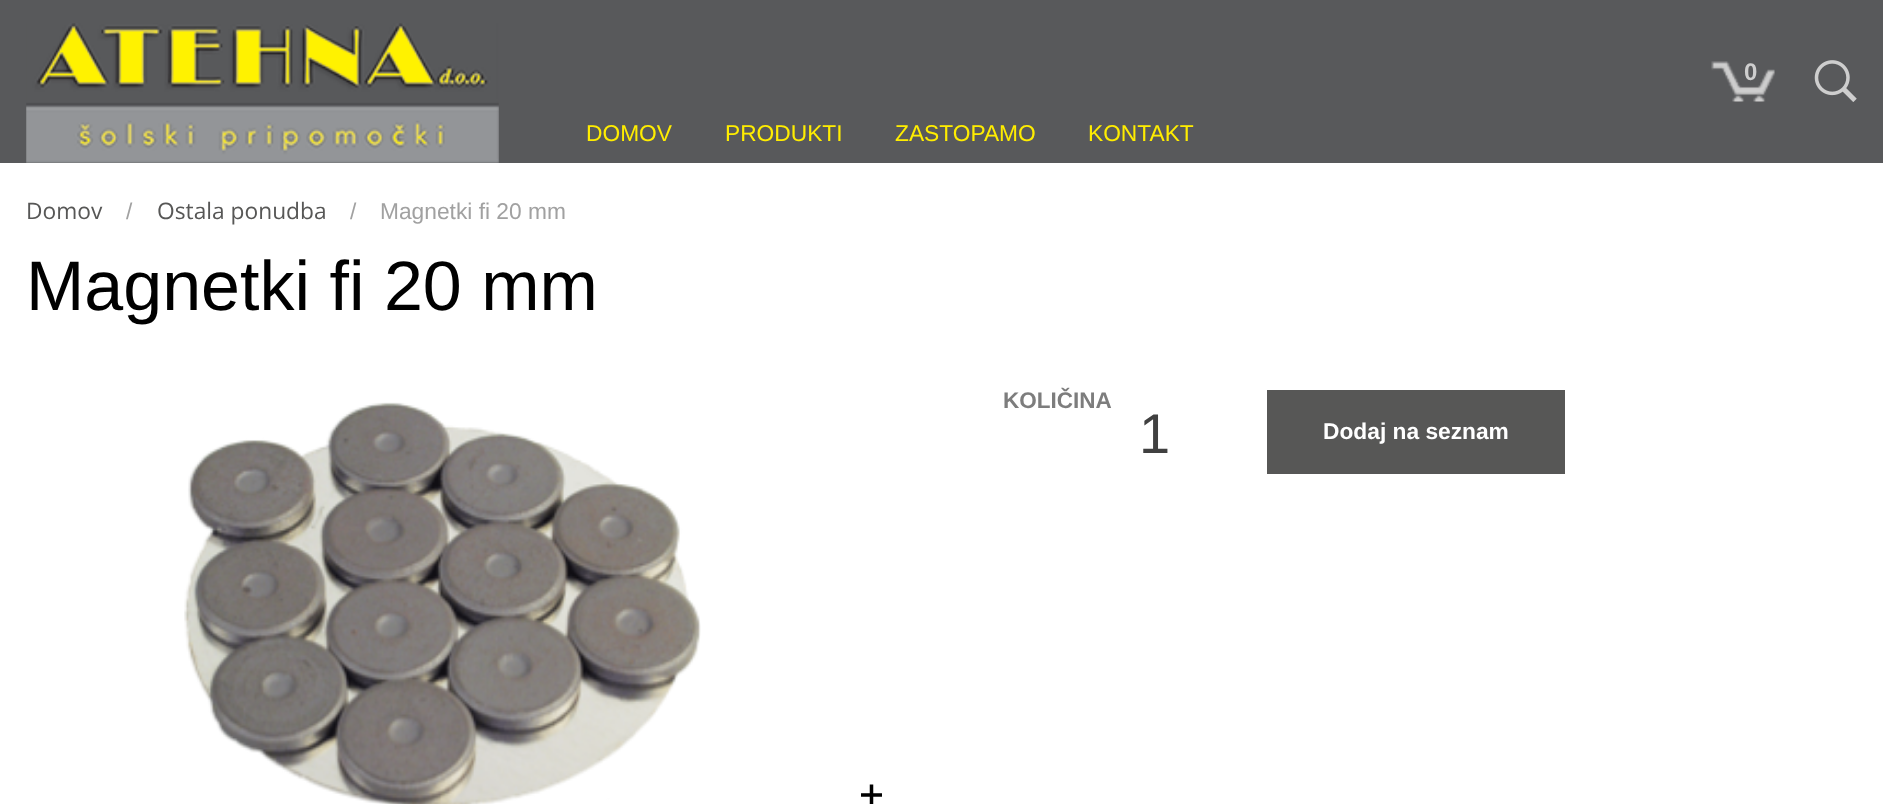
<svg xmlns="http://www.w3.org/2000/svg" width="1883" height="804">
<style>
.a{font:bold 24px Liberation Sans;fill:#cecece}
.b{font:22.75px Liberation Sans;fill:#ffed00}
.c{font:22.75px Open Sans;fill:#575756}
.d{font:22.75px Liberation Sans;fill:#a1a1a1}
.e{font:70px Liberation Sans;fill:#000}
.f{font:bold 22.5px Liberation Sans;fill:#7d7d7d}
.g{font:56px Liberation Sans;fill:#404040}
.h{font:bold 22.75px Liberation Sans;fill:#fff}
</style>
<rect width="100%" height="100%" fill="#fff"/>
<path fill="#58595b" d="M0 0h1883v163H0z"/>
<image href="1.png" x="26" y="23" width="473" height="140"/>
<image href="2.png" x="1711" y="61" width="64" height="41"/>
<image href="3.png" x="1814" y="60" width="43" height="42"/>
<image href="4.png" x="184" y="402" width="517" height="402"/>
<image href="5.png" x="861" y="784" width="21" height="20"/>
<path fill="#575756" d="M1267 390h298v84H1267z"/>
<text class="a" x="1744" y="80">0</text>
<text class="b" x="586" y="141">DOMOV</text>
<text class="b" x="725" y="141">PRODUKTI</text>
<text class="b" x="895" y="141">ZASTOPAMO</text>
<text class="b" x="1088" y="141">KONTAKT</text>
<text class="c" x="26" y="219">Domov</text>
<text class="d" x="126" y="219">/</text>
<text class="c" x="157" y="219">Ostala ponudba</text>
<text class="d" x="350" y="219">/</text>
<text class="d" x="380" y="219">Magnetki fi 20 mm</text>
<text class="e" x="26" y="310">Magnetki fi 20 mm</text>
<text class="f" x="1003" y="408">KOLIČINA</text>
<text class="g" x="1139" y="453">1</text>
<text class="h" x="1323" y="439">Dodaj na seznam</text>
</svg>
